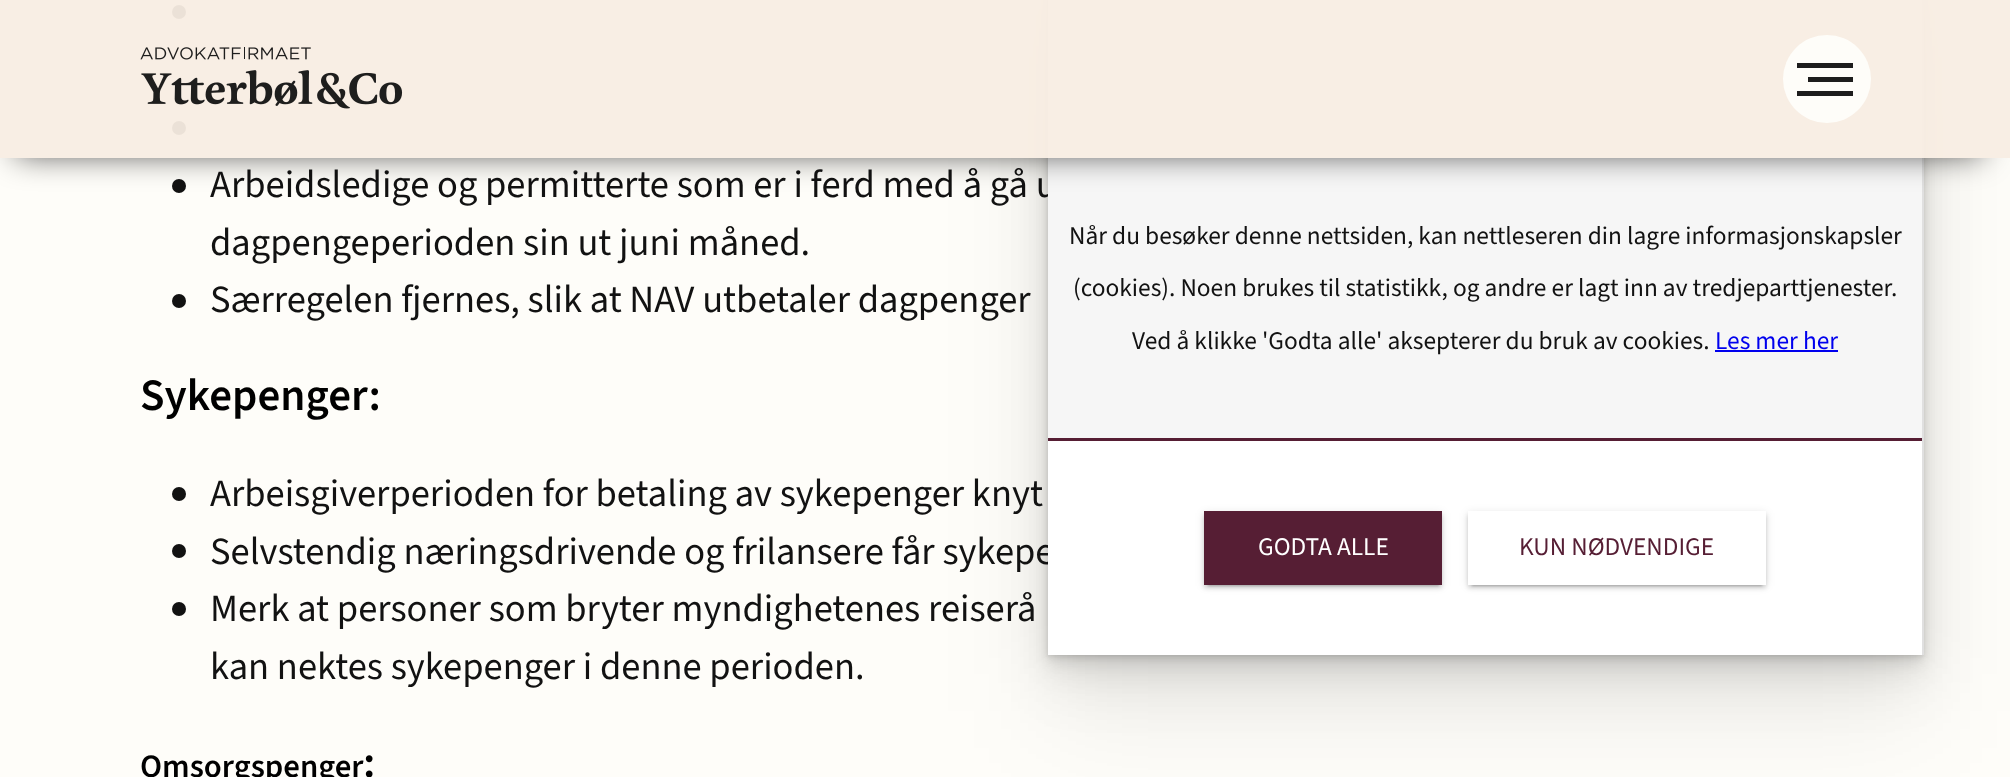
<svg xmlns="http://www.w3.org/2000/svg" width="2010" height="777">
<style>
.a{font:38.5px 'Source Sans 3';fill:#121212}
.b{font:600 45px 'Source Sans 3';fill:#000}
.c{font:600 32.75px 'Source Sans 3';fill:#000}
.d{font:25.4px 'Source Sans 3';fill:#121212}
.e{font:25.4px 'Source Sans 3';fill:#00e}
.f{font:25.4px 'Source Sans 3';fill:#fff}
.g{font:25.4px 'Source Sans 3';fill:#561e34}
</style>
<defs>
<clipPath id="clip1"><path d="M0 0h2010v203h-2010zm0 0h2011v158h-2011z" clip-rule="evenodd"/></clipPath>
<clipPath id="clip2"><path d="M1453 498h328v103h-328zm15 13h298v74h-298z" clip-rule="evenodd"/></clipPath>
<clipPath id="clip3"><path d="M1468 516h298v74h-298zm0-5h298v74h-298z" clip-rule="evenodd"/></clipPath>
<clipPath id="clip4"><path d="M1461 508h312v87h-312zm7 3h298v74h-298z" clip-rule="evenodd"/></clipPath>
</defs>
<rect width="100%" height="100%" fill="#fefdf9"/>
<circle fill="#121212" cx="179" cy="12" r="7"/>
<circle fill="#121212" cx="179" cy="128" r="7"/>
<circle fill="#121212" cx="179" cy="186" r="7"/>
<circle fill="#121212" cx="179" cy="301" r="7"/>
<circle fill="#121212" cx="179" cy="494" r="7"/>
<circle fill="#121212" cx="179" cy="551" r="7"/>
<circle fill="#121212" cx="179" cy="609" r="7"/>
<path fill="#00000012" filter="blur(56px)" d="M1048 37h875v674H1048z"/>
<path fill="#00000012" filter="blur(28px)" d="M1048 9h875v674H1048z"/>
<path fill="#00000012" filter="blur(14px)" d="M1048 -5h875v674H1048z"/>
<path fill="#00000012" filter="blur(7px)" d="M1048 -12h875v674H1048z"/>
<path fill="#00000012" filter="blur(3.5px)" d="M1048 -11h875v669H1048z"/>
<path fill="#00000012" filter="blur(2px)" d="M1048 -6h875v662H1048z"/>
<path fill="#e0e0e0" d="M1922 0h2v655H1922z"/>
<path fill="#561e34" d="M1048 438h874v3H1048z"/>
<text class="a" x="210" y="197">Arbeidsledige og permitterte som er i ferd med å gå u</text>
<text class="a" x="210" y="255">dagpengeperioden sin ut juni måned.</text>
<text class="a" x="210" y="312">Særregelen fjernes, slik at NAV utbetaler dagpenger</text>
<text class="b" x="140" y="410">Sykepenger:</text>
<text class="a" x="210" y="506">Arbeisgiverperioden for betaling av sykepenger knyt</text>
<text class="a" x="210" y="564">Selvstendig næringsdrivende og frilansere får sykepe</text>
<text class="a" x="210" y="621">Merk at personer som bryter myndighetenes reiserå</text>
<text class="a" x="210" y="679">kan nektes sykepenger i denne perioden.</text>
<text class="c" x="140" y="777">Omsorgspenger</text>
<text class="b" x="363" y="777">:</text>
<path fill="#f6f6f6" d="M1048 0h874v438H1048z"/>
<g clip-path="url(#clip1)">
<path fill="#000000b5" filter="blur(16px)" d="M16 42h1965v112H16z"/>
</g>
<path fill="#f8ede3f2" d="M0 0h2010v158H0z"/>
<circle fill="#fefdf9" cx="1827" cy="79" r="44"/>
<path fill="#1d1d1d" d="M1797 91h56v5H1797z"/>
<path fill="#1d1d1d" d="M1808 77h45v5H1808z"/>
<path fill="#1d1d1d" d="M1797 63h56v5H1797z"/>
<image href="1.png" x="140" y="47" width="263" height="62"/>
<text class="d" x="1069" y="244">Når du besøker denne nettsiden, kan nettleseren din lagre informasjonskapsler</text>
<text class="d" x="1073" y="296">(cookies). Noen brukes til statistikk, og andre er lagt inn av tredjeparttjenester.</text>
<text class="d" x="1132" y="349">Ved å klikke 'Godta alle' aksepterer du bruk av cookies.</text>
<text class="e" x="1715" y="349">Les mer her</text>
<path fill="#00e" d="M1715 350h123v2H1715z"/>
<path fill="#fff" d="M1048 441h874v214H1048z"/>
<path fill="#0000001f" filter="blur(4.5px)" d="M1204 513h238v73H1204z"/>
<path fill="#00000033" filter="blur(1px)" d="M1208 520h231v66H1208z"/>
<path fill="#00000024" filter="blur(2px)" d="M1204 515h238v73H1204z"/>
<path fill="#561e34" d="M1204 511h238v74H1204z"/>
<text class="f" x="1258" y="555">GODTA ALLE</text>
<g clip-path="url(#clip2)">
<path fill="#0000001f" filter="blur(4.5px)" d="M1468 513h298v73H1468z"/>
</g>
<g clip-path="url(#clip3)">
<path fill="#00000033" filter="blur(1px)" d="M1472 520h290v66H1472z"/>
</g>
<g clip-path="url(#clip4)">
<path fill="#00000024" filter="blur(2px)" d="M1468 515h298v73H1468z"/>
</g>
<text class="g" x="1519" y="555">KUN NØDVENDIGE</text>
</svg>
